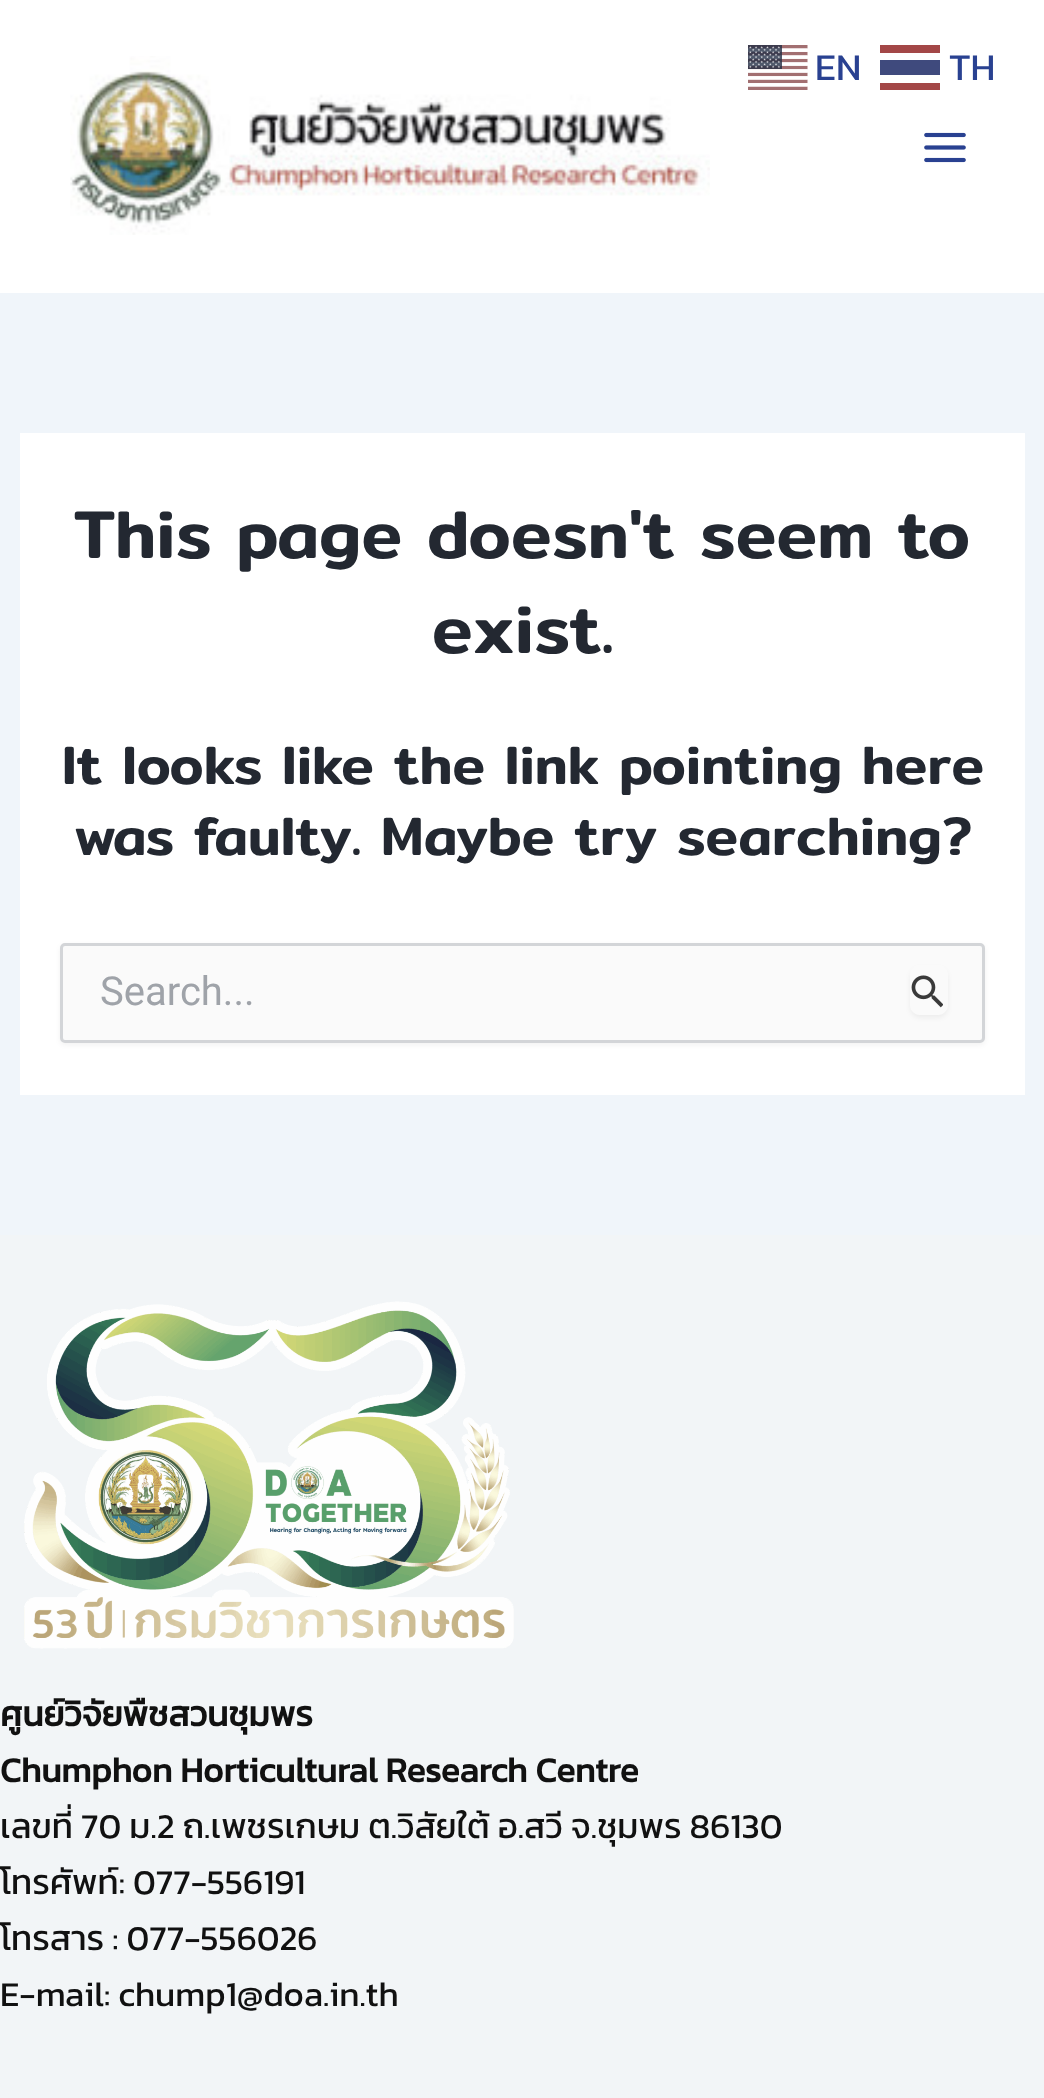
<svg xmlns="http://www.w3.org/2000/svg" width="1044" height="2098">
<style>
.a{font:38px Kanit;fill:#294191}
.b{font:500 68.4px Mitr;fill:#232831}
.c{font:500 54.75px Mitr;fill:#232831}
.d{font:40px Roboto;fill:#9fa3a9}
.e{font:bold 35px Kanit;fill:#111}
.f{font:35px Kanit;fill:#111}
</style>
<defs>
<clipPath id="clip1"><path d="M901 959h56v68h-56zm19 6h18c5.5 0 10 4.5 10 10v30c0 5.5-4.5 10-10 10h-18c-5.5 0-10-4.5-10-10v-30c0-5.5 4.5-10 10-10z" clip-rule="evenodd"/></clipPath>
</defs>
<rect width="100%" height="100%" fill="#f0f5fa"/>
<path fill="#fff" d="M0 0h1044v293H0z"/>
<image href="1.png" x="748" y="45" width="60" height="45"/>
<path fill="#3f4a7d" d="M880 60h60v15H880z"/>
<path fill="#a34747" fill-rule="evenodd" d="M880 45h60v8h-60zm0 38h60v7h-60z"/>
<image href="2.png" x="70" y="56" width="640" height="179"/>
<image href="3.png" x="924" y="132" width="42" height="31"/>
<path fill="#fff" d="M20 433h1005v662H20z"/>
<rect fill="#0000000d" filter="blur(2.5px)" x="60" y="945" width="925" height="100" rx="5"/>
<rect fill="#fafafa" stroke="#d3d5d8" stroke-width="3" x="61.5" y="944.5" width="922" height="97" rx="3.5"/>
<g clip-path="url(#clip1)">
<rect fill="#0000000d" filter="blur(2.5px)" x="910" y="968" width="38" height="50" rx="10"/>
</g>
<image href="4.png" x="911" y="975" width="32" height="33"/>
<path fill="#f2f5f7" d="M0 1235h1044v863H0z"/>
<image href="5.png" x="24" y="1301" width="490" height="348"/>
<text class="a" x="815" y="80">EN</text>
<text class="a" x="949" y="80">TH</text>
<text class="b" x="74" y="558">This page doesn't seem to</text>
<text class="b" x="432" y="653">exist.</text>
<text class="c" x="62" y="784">It looks like the link pointing here</text>
<text class="c" x="74" y="855">was faulty. Maybe try searching?</text>
<text class="d" x="100" y="1005">Search...</text>
<text class="e" x="0" y="1726">ศูนย์วิจัยพืชสวนชุมพร</text>
<text class="e" x="0" y="1782">Chumphon Horticultural Research Centre</text>
<text class="f" x="0" y="1838">เลขที่ 70 ม.2 ถ.เพชรเกษม ต.วิสัยใต้ อ.สวี จ.ชุมพร 86130</text>
<text class="f" x="0" y="1894">โทรศัพท์: 077-556191</text>
<text class="f" x="0" y="1950">โทรสาร : 077-556026</text>
<text class="f" x="0" y="2006">E-mail: chump1@doa.in.th</text>
</svg>
